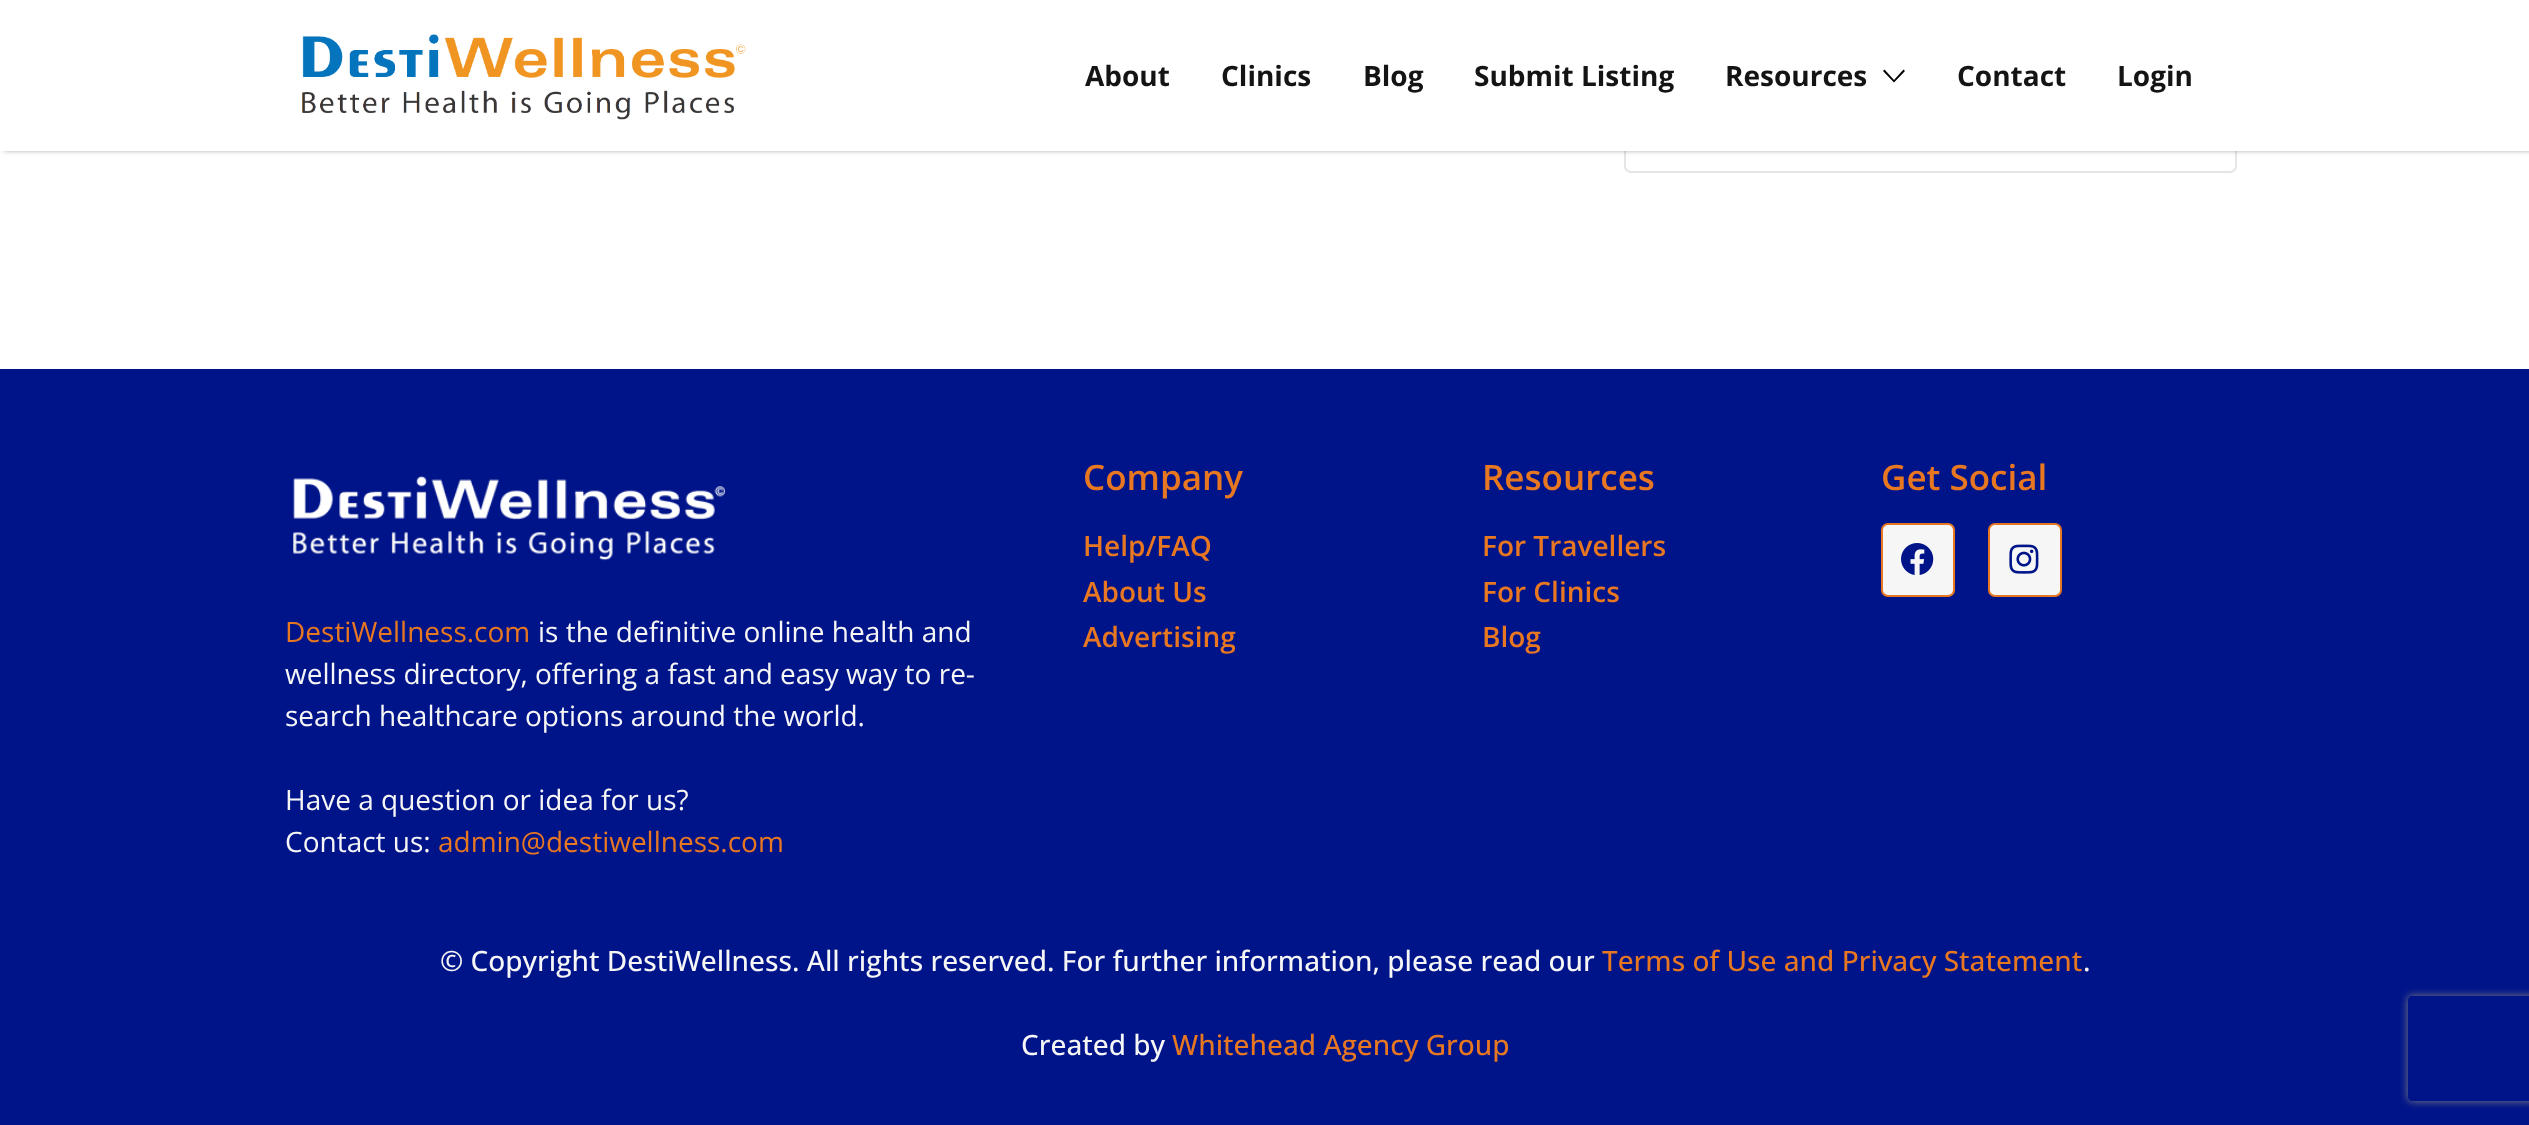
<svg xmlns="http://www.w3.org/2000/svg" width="2529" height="1125">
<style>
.a{font:bold 28px Open Sans;fill:#141414}
.b{font:600 35px Open Sans;fill:#e87722}
.c{font:600 28px Open Sans;fill:#e87722}
.d{font:28px Open Sans;fill:#e87722}
.e{font:28px Open Sans;fill:#f6f6f6}
.f{font:500 28px Open Sans;fill:#f6f6f6}
.g{font:500 28px Open Sans;fill:#e87722}
</style>
<defs>
<clipPath id="clip1"><path d="M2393 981h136v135h-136zm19 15h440c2 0 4 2 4 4v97c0 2-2 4-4 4h-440c-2 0-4-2-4-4v-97c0-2 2-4 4-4z" clip-rule="evenodd"/></clipPath>
</defs>
<rect width="100%" height="100%" fill="#fff"/>
<rect fill="none" stroke="#e5e5e5" stroke-width="2" x="1625" y="-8" width="611" height="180" rx="6"/>
<path fill="#0000004d" filter="blur(2.5px)" d="M4 0h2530v151H4z"/>
<path fill="#fff" d="M0 0h2529v151H0z"/>
<image href="1.png" x="302" y="34" width="444" height="86"/>
<path fill="#000" d="M1903.5 69.5l1.5 1.5l-11 11.5l-11-11.5l1.5-1.5l9.5 10.5z"/>
<path fill="#001489" d="M0 369h2529v756H0z"/>
<rect fill="#f6f6f6" stroke="#e87722" stroke-width="2" x="1882" y="524" width="72" height="72" rx="6"/>
<image href="2.png" x="1901" y="543" width="33" height="32"/>
<rect fill="#f6f6f6" stroke="#e87722" stroke-width="2" x="1989" y="524" width="72" height="72" rx="6"/>
<image href="3.png" x="2009" y="544" width="30" height="30"/>
<image href="4.png" x="293" y="476" width="433" height="85"/>
<g clip-path="url(#clip1)">
<rect fill="#808080" filter="blur(4.5px)" x="2408" y="996" width="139" height="105" rx="4"/>
</g>
<text class="a" x="1085" y="86">About</text>
<text class="a" x="1221" y="86">Clinics</text>
<text class="a" x="1363" y="86">Blog</text>
<text class="a" x="1474" y="86">Submit Listing</text>
<text class="a" x="1725" y="86">Resources</text>
<text class="a" x="1957" y="86">Contact</text>
<text class="a" x="2117" y="86">Login</text>
<text class="b" x="1083" y="490">Company</text>
<text class="c" x="1083" y="556">Help/FAQ</text>
<text class="c" x="1083" y="602">About Us</text>
<text class="c" x="1083" y="647">Advertising</text>
<text class="b" x="1482" y="490">Resources</text>
<text class="c" x="1482" y="556">For Travellers</text>
<text class="c" x="1482" y="602">For Clinics</text>
<text class="c" x="1482" y="647">Blog</text>
<text class="b" x="1881" y="490">Get Social</text>
<text class="d" x="285" y="642">DestiWellness.com</text>
<text class="e" x="538" y="642">is the definitive online health and</text>
<text class="e" x="285" y="684">wellness directory, offering a fast and easy way to re-</text>
<text class="e" x="285" y="726">search healthcare options around the world.</text>
<text class="e" x="285" y="810">Have a question or idea for us?</text>
<text class="e" x="285" y="852">Contact us:</text>
<text class="d" x="438" y="852">admin@destiwellness.com</text>
<text class="f" x="440" y="971">© Copyright DestiWellness. All rights reserved. For further information, please read our</text>
<text class="g" x="1602" y="971">Terms of Use and Privacy Statement</text>
<text class="f" x="2083" y="971">.</text>
<text class="f" x="1021" y="1055">Created by</text>
<text class="g" x="1172" y="1055">Whitehead Agency Group</text>
</svg>
